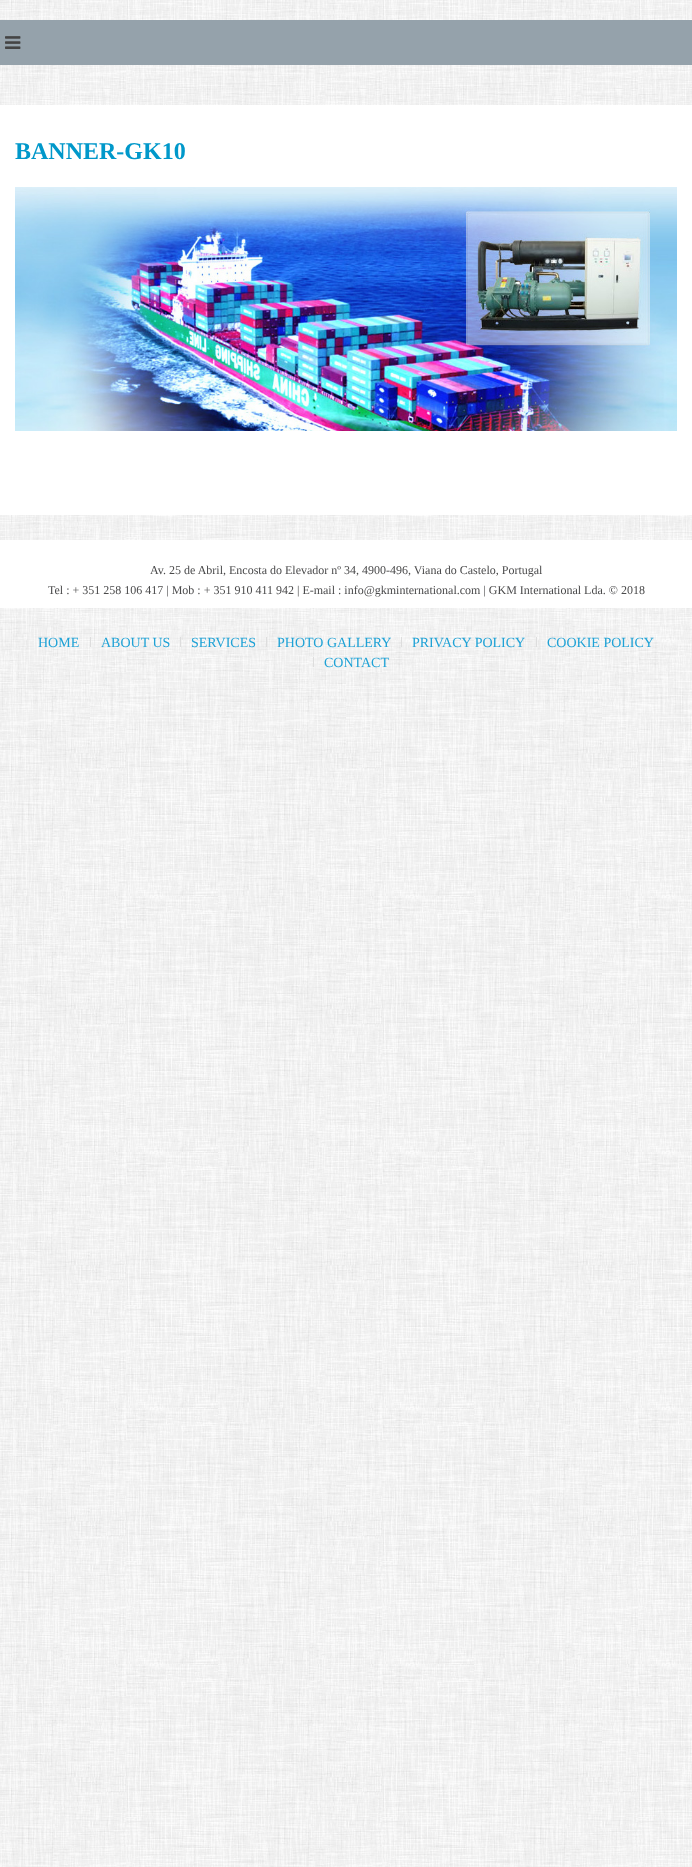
<svg xmlns="http://www.w3.org/2000/svg" width="692" height="1867">
<style>
.a{font:bold 24px Liberation Serif;fill:#0098ca}
.b{font:12px Liberation Serif;fill:#4a4a4b}
.c{font:14px Liberation Serif;fill:#1fa2d6}
</style>
<rect width="100%" height="100%" fill="#fff"/>
<image href="1.png" x="0" y="0" width="692" height="1867"/>
<path fill="#95a2ab" d="M0 20h692v45H0z"/>
<image href="2.png" x="5" y="36" width="16" height="13"/>
<path fill="#fff" d="M0 105h692v410H0z"/>
<image href="3.png" x="15" y="187" width="662" height="244"/>
<path fill="#fff" d="M0 540h692v68H0z"/>
<path fill="#ddd" d="M90 637h1v10H90z"/>
<path fill="#ddd" d="M180 637h1v10H180z"/>
<path fill="#ddd" d="M266 637h1v10H266z"/>
<path fill="#ddd" d="M401 637h1v10H401z"/>
<path fill="#ddd" d="M536 637h1v10H536z"/>
<path fill="#ddd" d="M313 657h1v10H313z"/>
<text class="a" x="15" y="159">BANNER-GK10</text>
<text class="b" x="150" y="574">Av. 25 de Abril, Encosta do Elevador nº 34, 4900-496, Viana do Castelo, Portugal</text>
<text class="b" x="48" y="594">Tel : + 351 258 106 417 | Mob : + 351 910 411 942 | E-mail : info@gkminternational.com | GKM International Lda. © 2018</text>
<text class="c" x="38" y="647">HOME</text>
<text class="c" x="101" y="647">ABOUT US</text>
<text class="c" x="191" y="647">SERVICES</text>
<text class="c" x="277" y="647">PHOTO GALLERY</text>
<text class="c" x="412" y="647">PRIVACY POLICY</text>
<text class="c" x="547" y="647">COOKIE POLICY</text>
<text class="c" x="324" y="667">CONTACT</text>
</svg>
